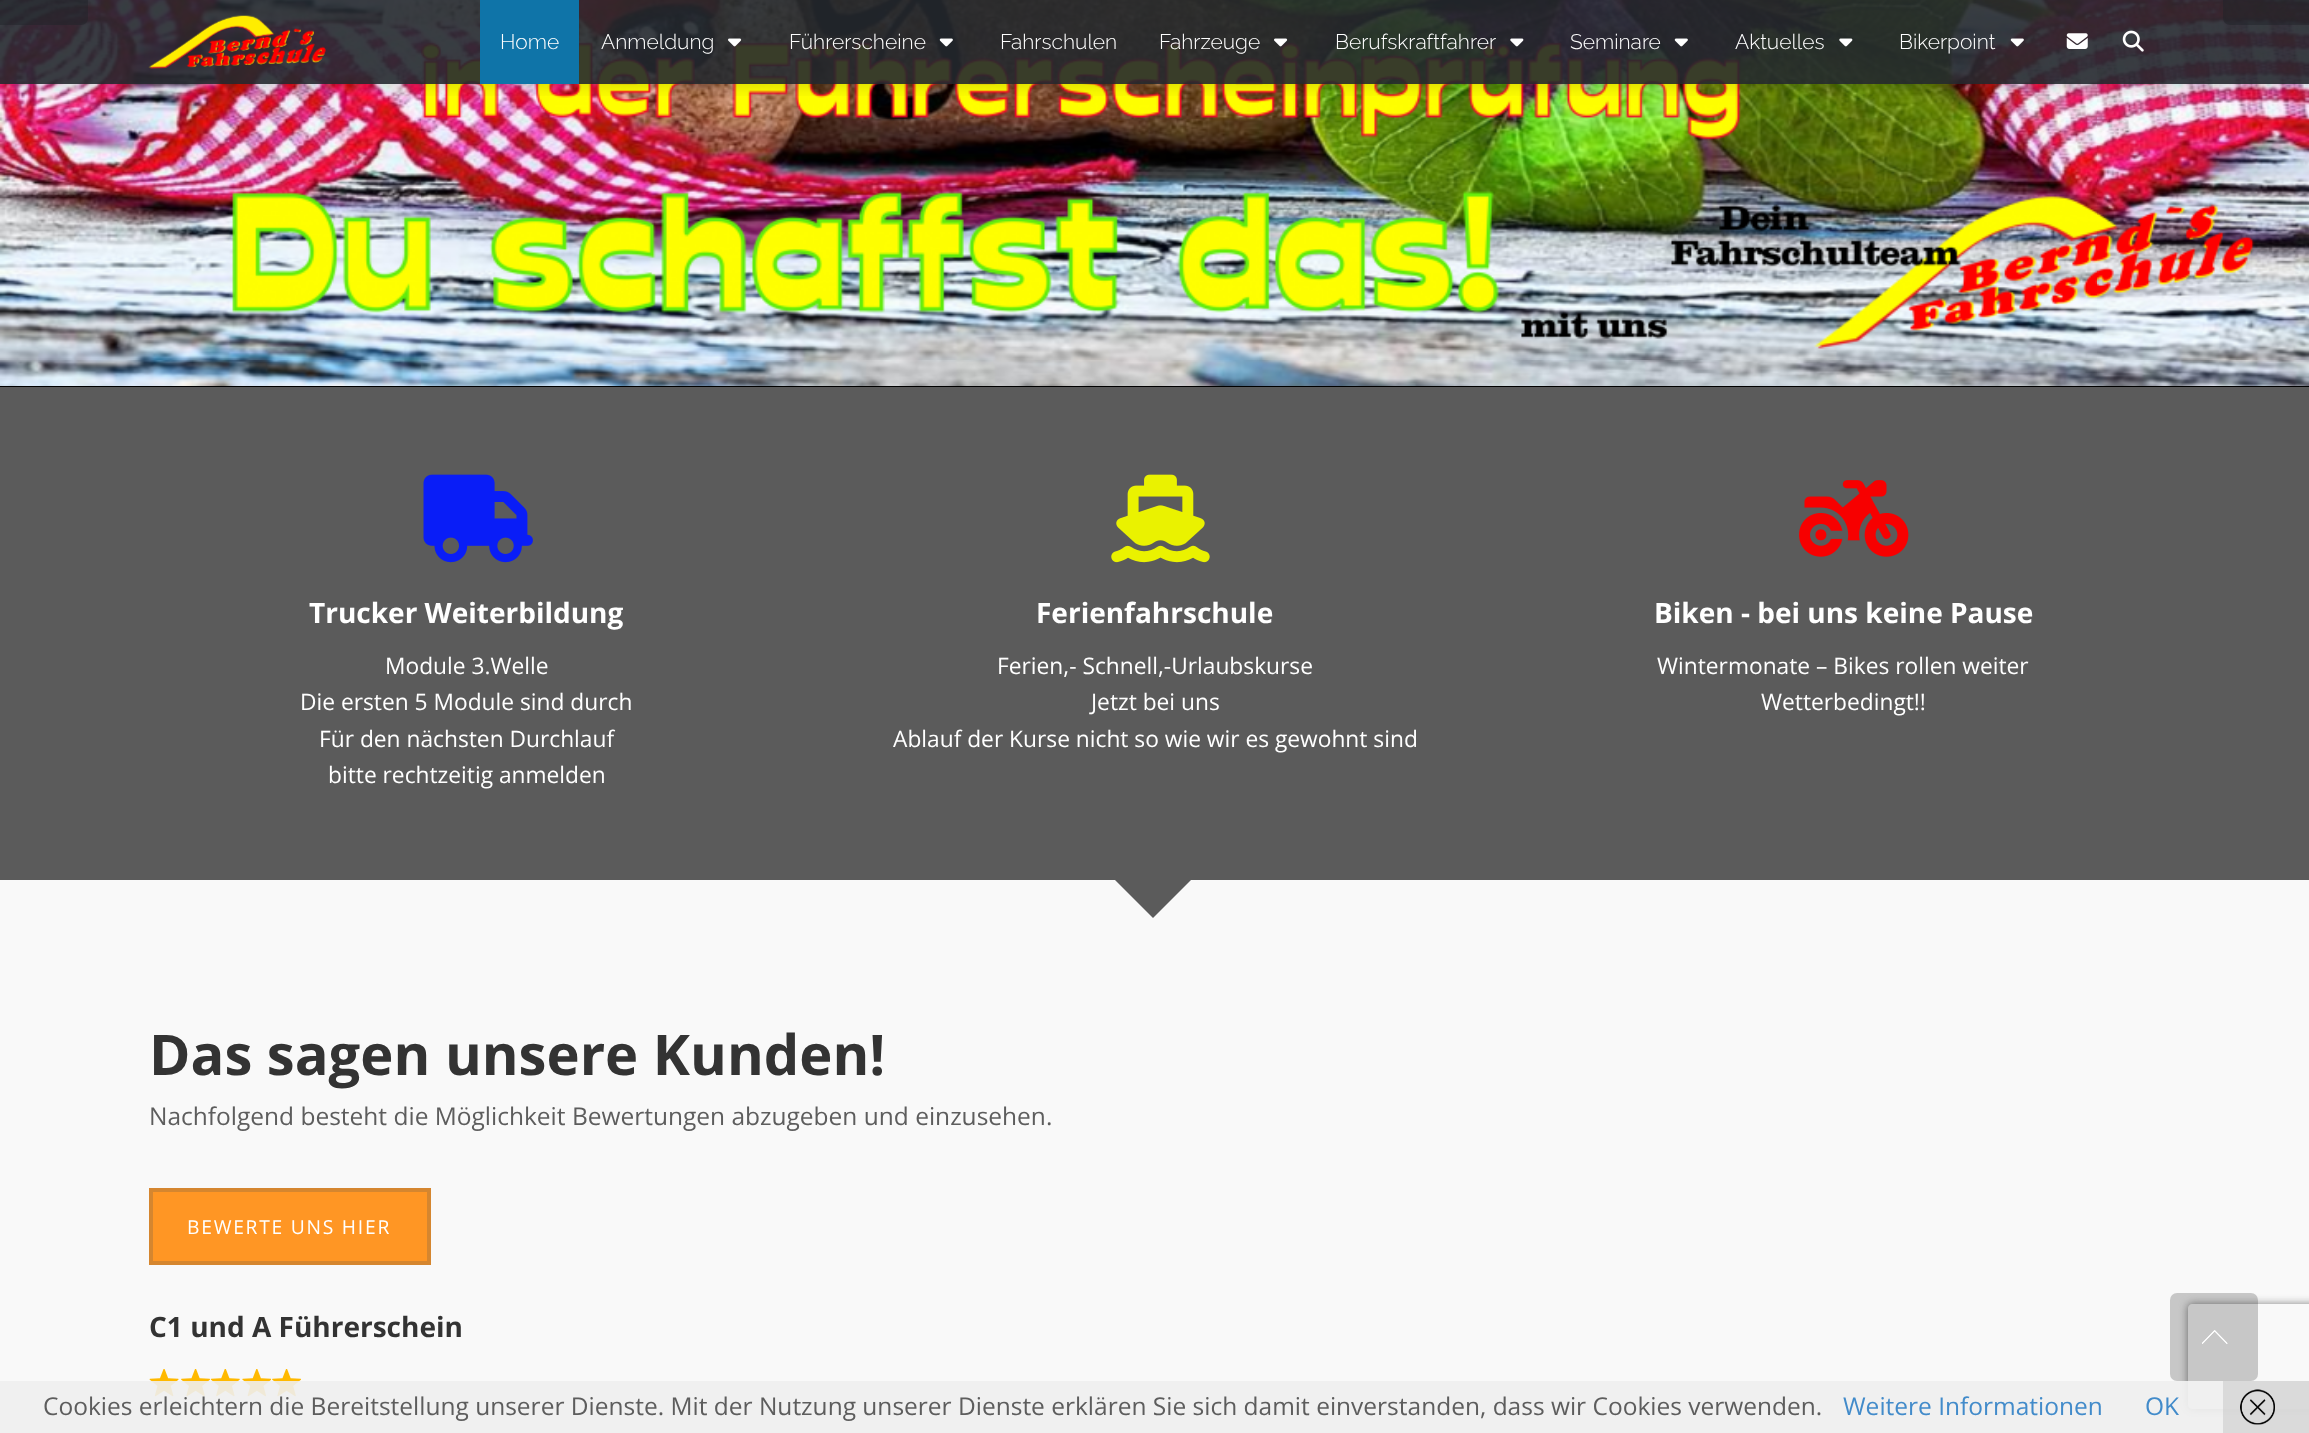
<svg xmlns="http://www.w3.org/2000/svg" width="2309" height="1433">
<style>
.a{font:300 21px Raleway;fill:#fff}
.b{font:bold 28px Open Sans;fill:#fff}
.c{font:22.75px Open Sans;fill:#fff}
.d{font:bold 56.1px Open Sans;fill:#333}
.e{font:24.5px Open Sans;fill:#5d5d5d}
.f{font:19.25px Open Sans;letter-spacing:1.75px;fill:#fff}
.g{font:bold 28px Open Sans;fill:#333}
.h{font:24.5px Open Sans;fill:#428bca}
</style>
<defs>
<clipPath id="clip1"><path d="M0 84h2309v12H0z"/></clipPath>
<clipPath id="clip2"><path d="M1110 880h87v44H1110z"/></clipPath>
<clipPath id="clip3"><path d="M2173 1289h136v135h-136zm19 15h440c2 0 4 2 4 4v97c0 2-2 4-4 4h-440c-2 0-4-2-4-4v-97c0-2 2-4 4-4z" clip-rule="evenodd"/></clipPath>
</defs>
<rect width="100%" height="100%" fill="#f9f9f9"/>
<image href="11.png" x="0" y="0" width="2309" height="386"/>
<path fill="#00000080" d="M0-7h81c4 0 7 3 7 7v18c0 4-3 7-7 7h-81z"/>
<path fill="#00000080" d="M2230-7h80v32h-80c-4 0-7-3-7-7v-18c0-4 3-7 7-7z"/>
<g clip-path="url(#clip1)">
<path fill="#00000033" filter="blur(9px)" d="M0 0h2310v84H0z"/>
</g>
<path fill="#23282de6" d="M0 0h2309v84H0z"/>
<image href="1.png" x="148" y="15" width="178" height="54"/>
<path fill="#0f74a8" d="M480 0h99v84H480z"/>
<image href="2.png" x="728" y="38" width="14" height="9"/>
<image href="3.png" x="939" y="38" width="14" height="9"/>
<image href="4.png" x="1274" y="38" width="14" height="9"/>
<image href="5.png" x="1510" y="38" width="14" height="9"/>
<image href="6.png" x="1674" y="38" width="14" height="9"/>
<image href="7.png" x="1839" y="38" width="14" height="9"/>
<image href="8.png" x="2010" y="38" width="14" height="9"/>
<image href="9.png" x="2066" y="33" width="22" height="16"/>
<image href="10.png" x="2122" y="30" width="22" height="22"/>
<path fill="#000" d="M0 386h2309v1H0z"/>
<path fill="#5b5b5b" d="M0 387h2309v493H0z"/>
<image href="12.png" x="423" y="474" width="110" height="89"/>
<image href="13.png" x="1111" y="474" width="99" height="89"/>
<image href="14.png" x="1799" y="480" width="110" height="77"/>
<g clip-path="url(#clip2)">
<path fill="#5b5b5b" d="M1153 795l62 61l-62 62l-62-62z"/>
</g>
<path fill="#ff9624" stroke="#d5862f" stroke-width="4" d="M151 1190h278v73H151z"/>
<image href="15.png" x="149" y="1369" width="30" height="28"/>
<image href="16.png" x="181" y="1369" width="29" height="28"/>
<image href="17.png" x="210" y="1369" width="30" height="28"/>
<image href="18.png" x="242" y="1369" width="29" height="28"/>
<image href="16.png" x="272" y="1369" width="29" height="28"/>
<g clip-path="url(#clip3)">
<rect fill="#808080" filter="blur(4.5px)" x="2188" y="1304" width="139" height="105" rx="4"/>
</g>
<rect fill="#00000033" x="2170" y="1293" width="88" height="88" rx="7"/>
<image href="19.png" x="2202" y="1330" width="26" height="14"/>
<path fill="#eeeeeee6" d="M0 1381h2309v52H0z"/>
<path fill="#cccccc99" d="M2223 1381h86v52H2223z"/>
<image href="20.png" x="2240" y="1389" width="35" height="36"/>
<text class="a" x="500" y="49">Home</text>
<text class="a" x="601" y="49">Anmeldung</text>
<text class="a" x="789" y="49">Führerscheine</text>
<text class="a" x="1000" y="49">Fahrschulen</text>
<text class="a" x="1159" y="49">Fahrzeuge</text>
<text class="a" x="1335" y="49">Berufskraftfahrer</text>
<text class="a" x="1570" y="49">Seminare</text>
<text class="a" x="1735" y="49">Aktuelles</text>
<text class="a" x="1899" y="49">Bikerpoint</text>
<text class="b" x="309" y="623">Trucker Weiterbildung</text>
<text class="c" x="385" y="674">Module 3.Welle</text>
<text class="c" x="300" y="710">Die ersten 5 Module sind durch</text>
<text class="c" x="319" y="747">Für den nächsten Durchlauf</text>
<text class="c" x="328" y="783">bitte rechtzeitig anmelden</text>
<text class="b" x="1036" y="623">Ferienfahrschule</text>
<text class="c" x="997" y="674">Ferien,- Schnell,-Urlaubskurse</text>
<text class="c" x="1091" y="710">Jetzt bei uns</text>
<text class="c" x="893" y="747">Ablauf der Kurse nicht so wie wir es gewohnt sind</text>
<text class="b" x="1654" y="623">Biken - bei uns keine Pause</text>
<text class="c" x="1657" y="674">Wintermonate – Bikes rollen weiter</text>
<text class="c" x="1761" y="710">Wetterbedingt!!</text>
<text class="d" x="149" y="1075">Das sagen unsere Kunden!</text>
<text class="e" x="149" y="1125">Nachfolgend besteht die Möglichkeit Bewertungen abzugeben und einzusehen.</text>
<text class="f" x="187" y="1234">BEWERTE UNS HIER</text>
<text class="g" x="149" y="1337">C1 und A Führerschein</text>
<text class="e" x="43" y="1415">Cookies erleichtern die Bereitstellung unserer Dienste. Mit der Nutzung unserer Dienste erklären Sie sich damit einverstanden, dass wir Cookies verwenden.</text>
<text class="h" x="1843" y="1415">Weitere Informationen</text>
<text class="h" x="2145" y="1415">OK</text>
</svg>
